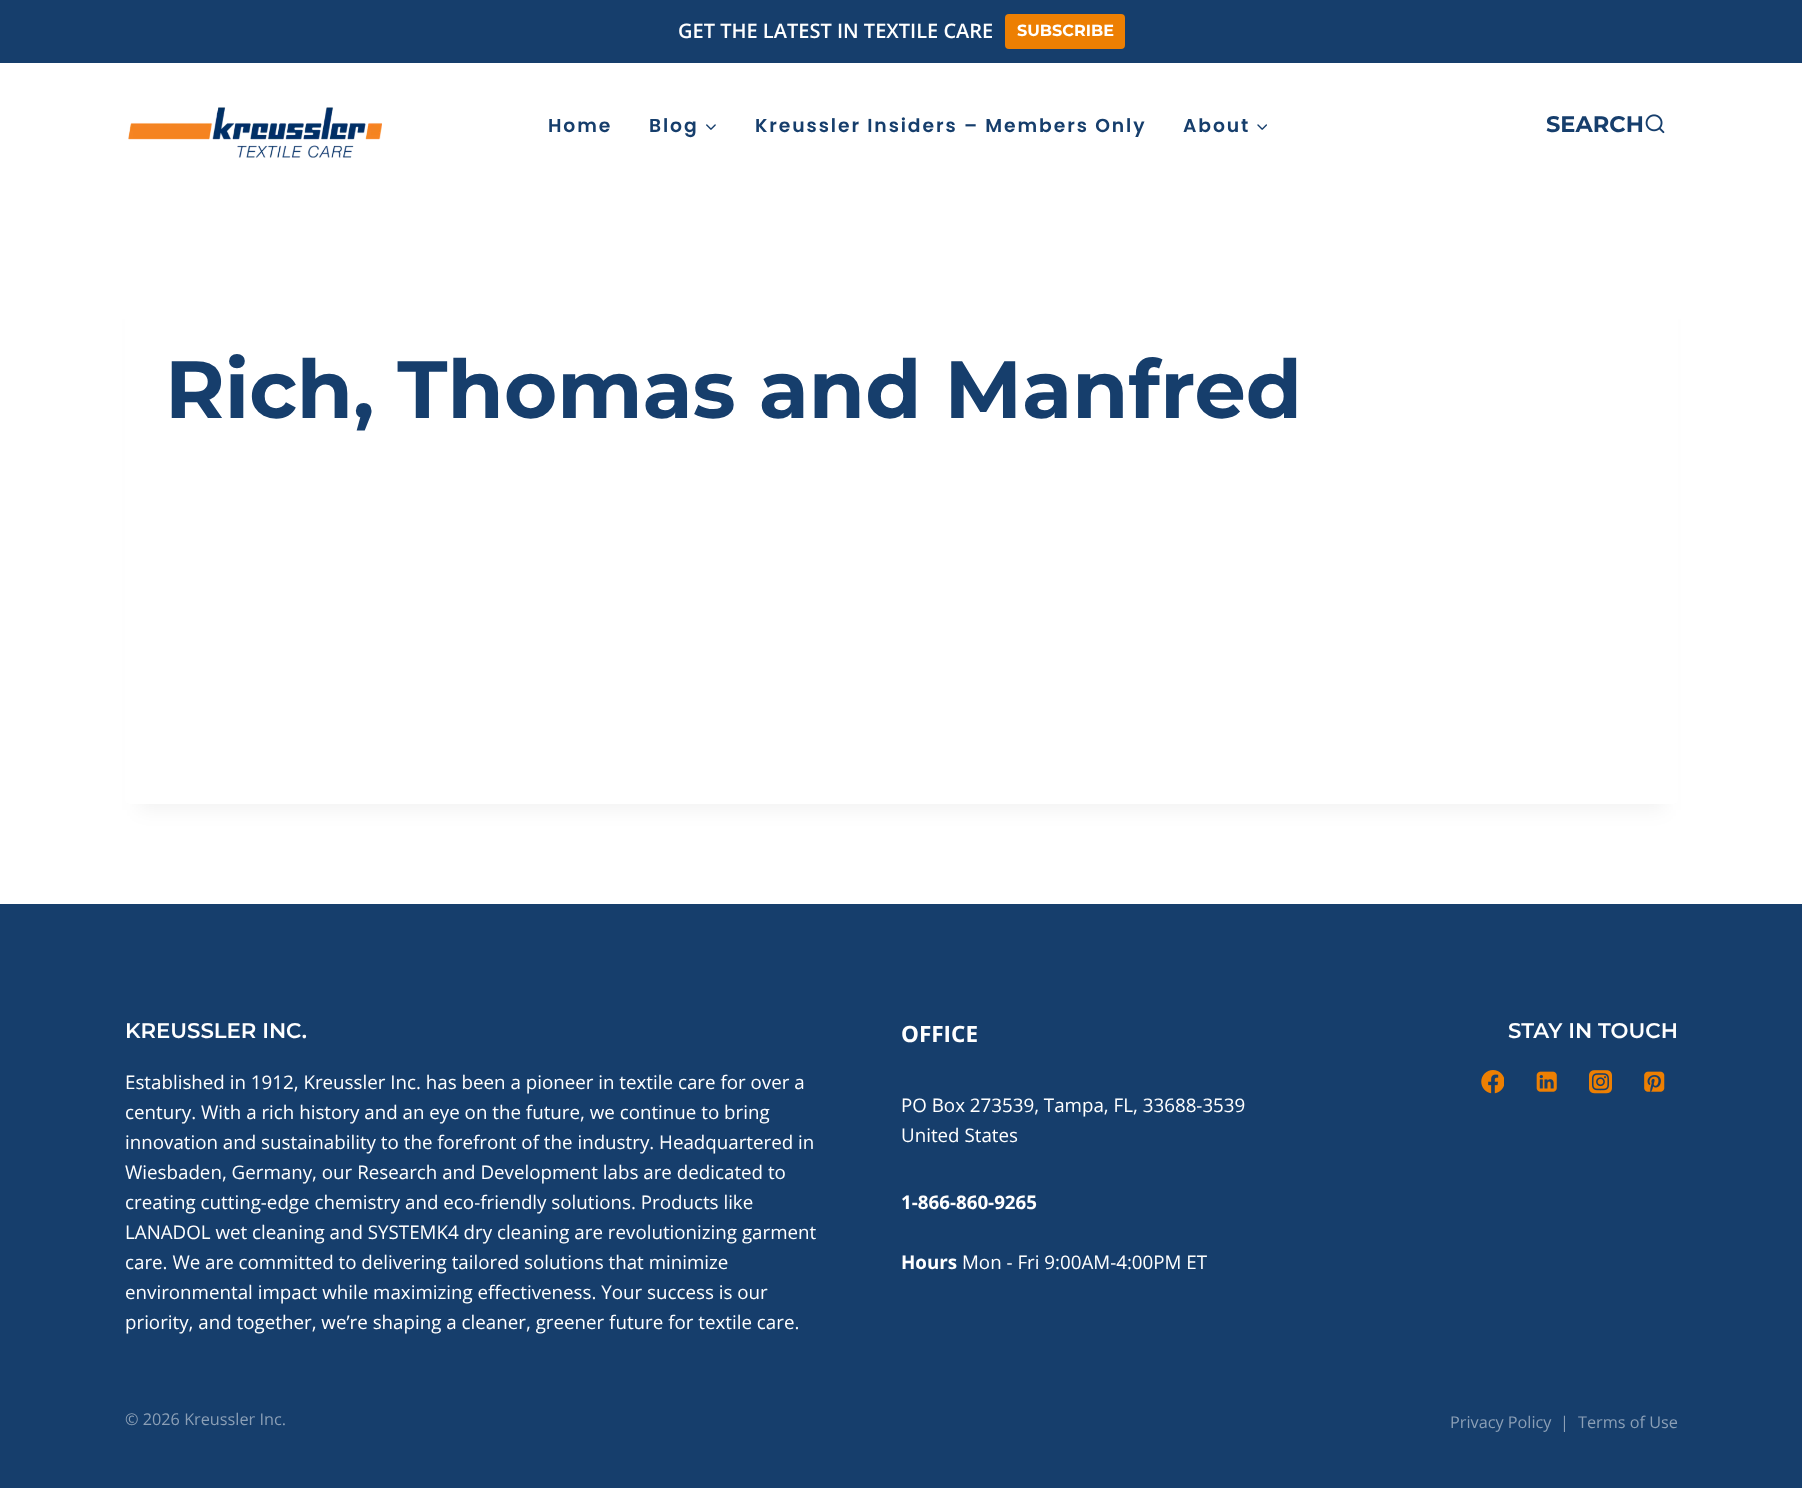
<svg xmlns="http://www.w3.org/2000/svg" width="1802" height="1488">
<style>
.a{font:600 20px Open Sans;fill:#fff}
.b{font:bold 16px Montserrat;fill:#fff}
.c{font:600 18.75px Poppins;letter-spacing:1.9px;fill:#163e6c}
.d{font:bold 22.5px Montserrat;fill:#163e6c}
.e{font:bold 81.25px Montserrat;fill:#163e6c}
.f{font:600 21.25px Montserrat;fill:#fff}
.g{font:18.75px Open Sans;fill:#fff}
.h{font:bold 22.5px Open Sans;fill:#fff}
.i{font:bold 18.75px Open Sans;fill:#fff}
.j{font:16.25px Open Sans;fill:#8b9fb6}
</style>
<rect width="100%" height="100%" fill="#fff"/>
<path fill="#163e6c" d="M0 0h1802v63H0z"/>
<rect fill="#ed7f02" x="1005" y="14" width="120" height="35" rx="4"/>
<image href="1.png" x="128" y="107" width="254" height="51"/>
<image href="2.png" x="706" y="124" width="10" height="6"/>
<image href="3.png" x="1257" y="124" width="10" height="6"/>
<image href="4.png" x="1645" y="114" width="20" height="20"/>
<path fill="#0000000d" filter="blur(9.5px)" d="M138 319h1527v491H138z"/>
<rect fill="#fff" x="125" y="288" width="1553" height="516" rx="5"/>
<path fill="#163e6c" d="M0 904h1802v584H0z"/>
<image href="5.png" x="1481" y="1070" width="23" height="24"/>
<image href="6.png" x="1536" y="1071" width="21" height="21"/>
<image href="7.png" x="1589" y="1070" width="23" height="24"/>
<image href="8.png" x="1644" y="1071" width="21" height="21"/>
<text class="a" x="678" y="38">GET THE LATEST IN TEXTILE CARE</text>
<text class="b" x="1017" y="36">SUBSCRIBE</text>
<text class="c" x="548" y="132">Home</text>
<text class="c" x="649" y="132">Blog</text>
<text class="c" x="755" y="132">Kreussler Insiders – Members Only</text>
<text class="c" x="1183" y="132">About</text>
<text class="d" x="1546" y="132">SEARCH</text>
<text class="e" x="165" y="418">Rich, Thomas and Manfred</text>
<text class="f" x="125" y="1038">KREUSSLER INC.</text>
<text class="g" x="125" y="1089">Established in 1912, Kreussler Inc. has been a pioneer in textile care for over a</text>
<text class="g" x="125" y="1119">century. With a rich history and an eye on the future, we continue to bring</text>
<text class="g" x="125" y="1149">innovation and sustainability to the forefront of the industry. Headquartered in</text>
<text class="g" x="125" y="1179">Wiesbaden, Germany, our Research and Development labs are dedicated to</text>
<text class="g" x="125" y="1209">creating cutting-edge chemistry and eco-friendly solutions. Products like</text>
<text class="g" x="125" y="1239">LANADOL wet cleaning and SYSTEMK4 dry cleaning are revolutionizing garment</text>
<text class="g" x="125" y="1269">care. We are committed to delivering tailored solutions that minimize</text>
<text class="g" x="125" y="1299">environmental impact while maximizing effectiveness. Your success is our</text>
<text class="g" x="125" y="1329">priority, and together, we’re shaping a cleaner, greener future for textile care.</text>
<text class="h" x="901" y="1042">OFFICE</text>
<text class="g" x="901" y="1112">PO Box 273539, Tampa, FL, 33688-3539</text>
<text class="g" x="901" y="1142">United States</text>
<text class="i" x="901" y="1209">1-866-860-9265</text>
<text class="i" x="901" y="1269">Hours</text>
<text class="g" x="962" y="1269">Mon - Fri 9:00AM-4:00PM ET</text>
<text class="f" x="1508" y="1038">STAY IN TOUCH</text>
<text class="j" x="125" y="1425">© 2026 Kreussler Inc.</text>
<text class="j" x="1450" y="1428">Privacy Policy</text>
<text class="j" x="1560" y="1428">|</text>
<text class="j" x="1578" y="1428">Terms of Use</text>
</svg>
